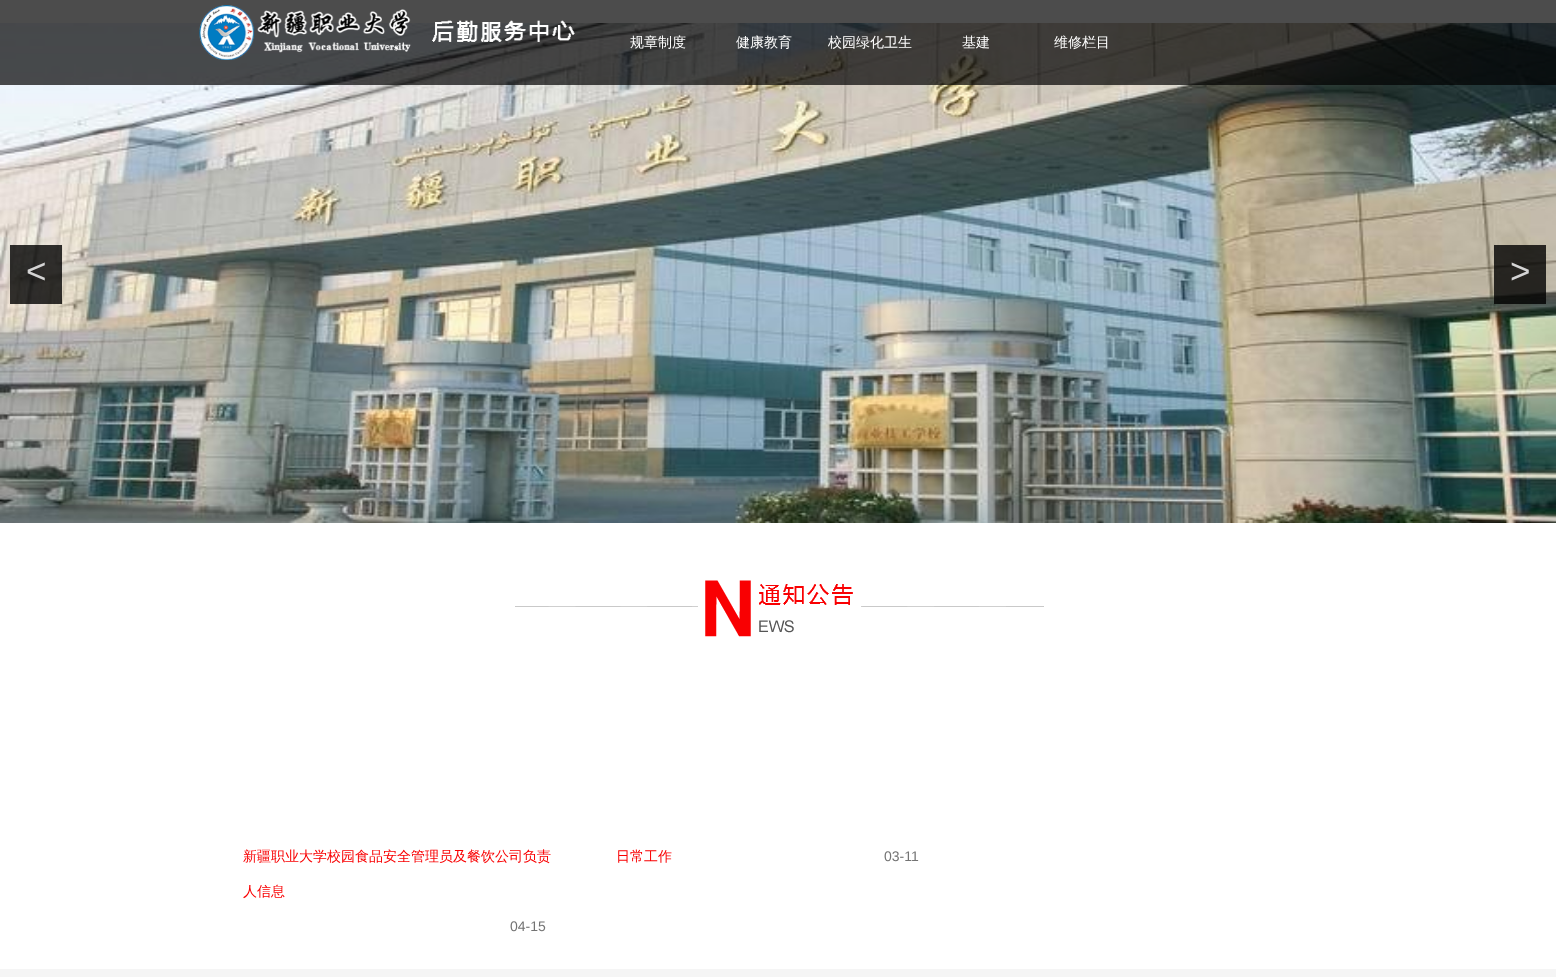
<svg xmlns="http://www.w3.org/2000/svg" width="1556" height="977">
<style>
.a{font:500 14px WenQuanYi Zen Hei;fill:#fff}
.b{font:35px Liberation Sans;fill:#d4d4d4}
.c{font:500 14px WenQuanYi Zen Hei;fill:#f90002}
.d{font:14px Liberation Sans;fill:#737373}
</style>
<rect width="100%" height="100%" fill="#fff"/>
<image href="2.png" x="0" y="23" width="1556" height="500"/>
<path fill="#000000b3" d="M0 0h1556v85H0z"/>
<image href="1.png" x="199" y="5" width="376" height="55"/>
<path fill="#000000cc" d="M10 245h52v59H10z"/>
<path fill="#000000cc" d="M1494 245h52v59H1494z"/>
<image href="3.png" x="515" y="580" width="529" height="57"/>
<path fill="#f5f5f5" d="M0 969h1556v8H0z"/>
<text class="a" x="630" y="47">规章制度</text>
<text class="a" x="736" y="47">健康教育</text>
<text class="a" x="828" y="47">校园绿化卫生</text>
<text class="a" x="962" y="47">基建</text>
<text class="a" x="1054" y="47">维修栏目</text>
<text class="b" x="26" y="283">&lt;</text>
<text class="b" x="1510" y="283">&gt;</text>
<text class="c" x="243" y="861">新疆职业大学校园食品安全管理员及餐饮公司负责</text>
<text class="c" x="243" y="896">人信息</text>
<text class="d" x="510" y="931">04-15</text>
<text class="c" x="616" y="861">日常工作</text>
<text class="d" x="884" y="861">03-11</text>
</svg>
